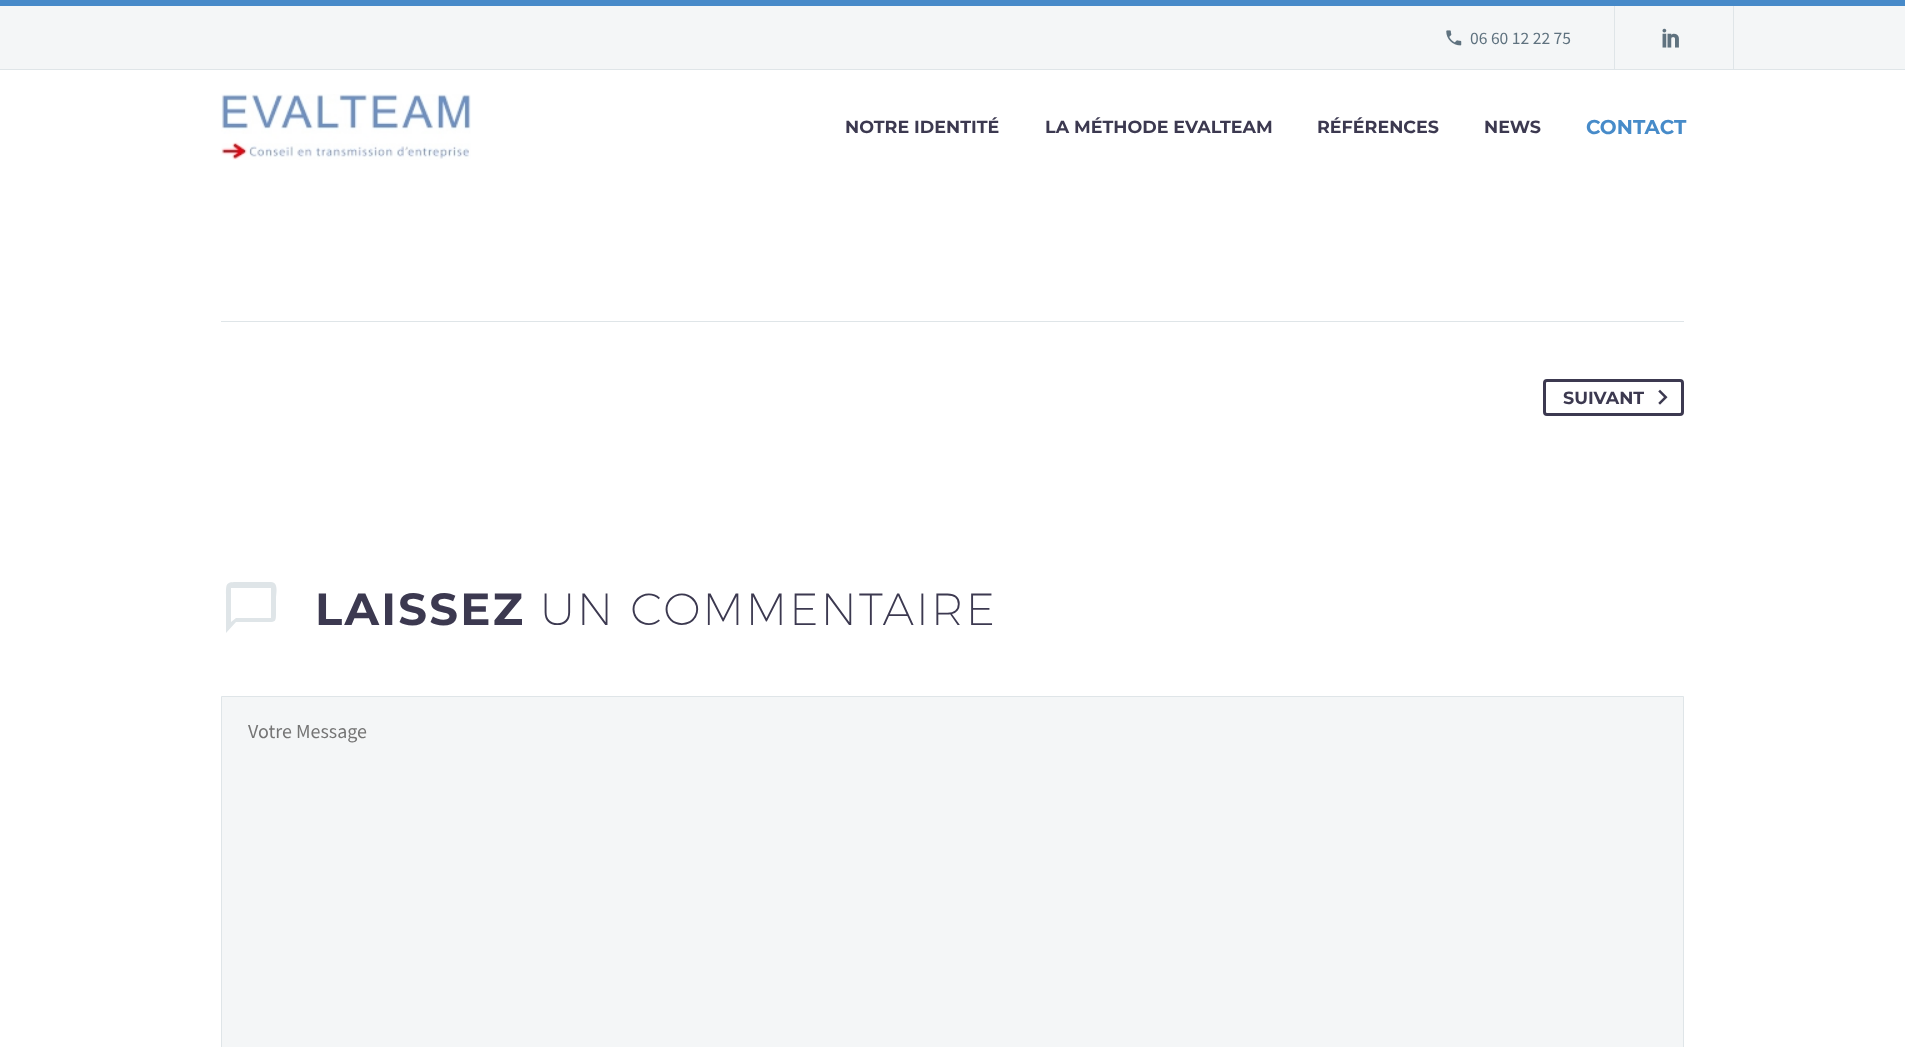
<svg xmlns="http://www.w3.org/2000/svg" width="1905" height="1047">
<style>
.a{font:17.5px Source Sans Pro;fill:#5f727f}
.b{font:bold 17.5px Montserrat;fill:#3c3950}
.c{font:bold 20px Montserrat;fill:#478bc9}
.d{font:bold 45px Montserrat;letter-spacing:2.25px;fill:#3c3950}
.e{font:200 45px Montserrat;letter-spacing:2.25px;fill:#3c3950}
.f{font:20px Source Sans Pro;fill:#757575}
</style>
<rect width="100%" height="100%" fill="#f4f6f7"/>
<path fill="#478ac9" d="M0 0h1905v6H0z"/>
<path fill="#dfe5e8" d="M0 69h1905v1H0z"/>
<image href="1.png" x="1446" y="30" width="16" height="16"/>
<path fill="#dfe5e8" d="M1614 6h1v63H1614z"/>
<image href="2.png" x="1662" y="28" width="17" height="20"/>
<path fill="#dfe5e8" d="M1733 6h1v63H1733z"/>
<path fill="#fff" d="M0 70h1905v977H0z"/>
<image href="3.png" x="221" y="94" width="250" height="66"/>
<path fill="#dfe5e8" d="M221 321h1463v1H221z"/>
<rect fill="none" stroke="#3c3950" stroke-width="3" x="1544.5" y="380.5" width="138" height="34" rx="2.5"/>
<image href="4.png" x="1658" y="389" width="10" height="16"/>
<path fill="#dfe5e8" d="M271 582h-33c-12 0-12 1-12 13v38l10-11h29c10 0 11 1 11-9v-15c0-4 3-16-5-16zm0 36h-35l-5 4v-34h40z"/>
<path fill="#f4f6f7" stroke="#dfe5e8" d="M221.5 696.5h1462v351H221.5z"/>
<text class="a" x="1470" y="44">06 60 12 22 75</text>
<text class="b" x="845" y="133">NOTRE IDENTITÉ</text>
<text class="b" x="1045" y="133">LA MÉTHODE EVALTEAM</text>
<text class="b" x="1317" y="133">RÉFÉRENCES</text>
<text class="b" x="1484" y="133">NEWS</text>
<text class="c" x="1586" y="134">CONTACT</text>
<text class="b" x="1563" y="404">SUIVANT</text>
<text class="d" x="315" y="625">LAISSEZ</text>
<text class="e" x="540" y="625">UN COMMENTAIRE</text>
<text class="f" x="248" y="738">Votre Message</text>
</svg>
